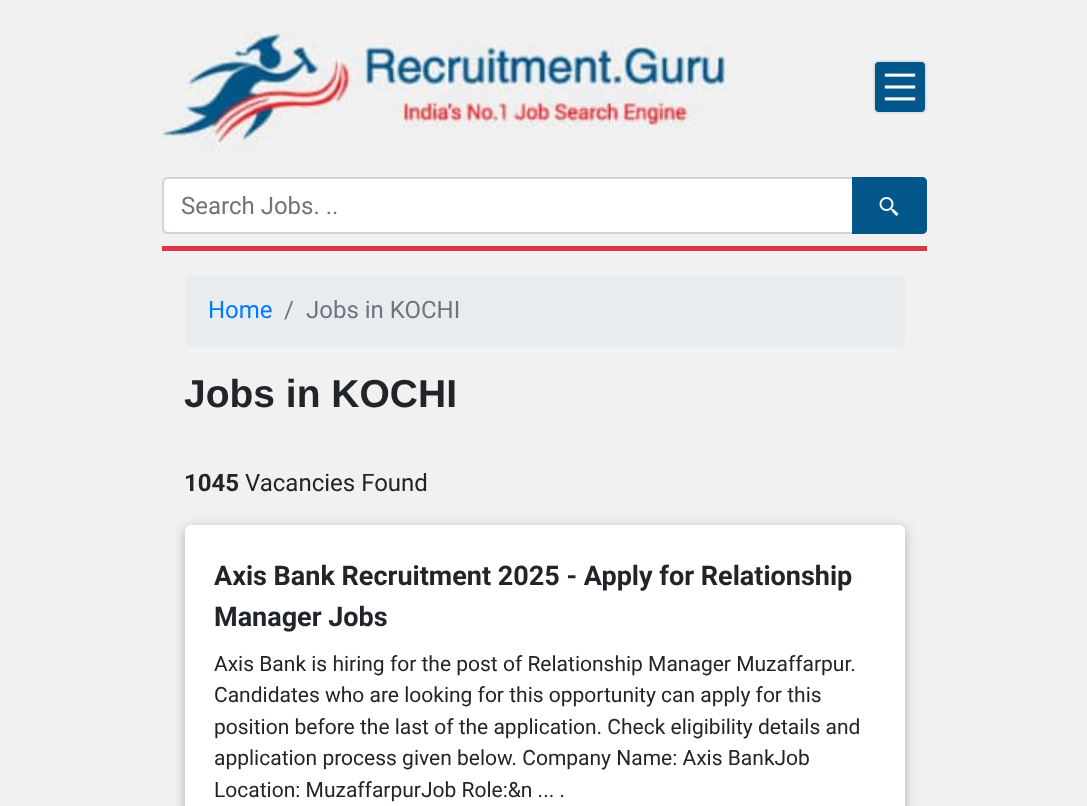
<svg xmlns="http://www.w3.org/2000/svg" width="1087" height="806">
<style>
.a{font:24px Roboto;fill:#6c757d}
.b{font:24px Roboto;fill:#007bff}
.c{font:bold 39px Liberation Sans;fill:#212529}
.d{font:bold 24px Roboto;fill:#212529}
.e{font:24px Roboto;fill:#212529}
.f{font:bold 27px Roboto;fill:#212529}
.g{font:21px Roboto;fill:#212529}
</style>
<rect width="100%" height="100%" fill="#f1f1f1"/>
<image href="1.png" x="162" y="24" width="570" height="128"/>
<rect fill="#025689" stroke="#dee2e6" stroke-width="2" x="874" y="61" width="52" height="52" rx="5"/>
<image href="2.png" x="884" y="73" width="32" height="28"/>
<path fill="#fff" stroke="#ced4da" stroke-width="2" d="M168 178h685v55h-685c-3 0-5-2-5-5v-45c0-3 2-5 5-5z"/>
<path fill="#025689" d="M852 177h70c3 0 5 2 5 5v47c0 3-2 5-5 5h-70z"/>
<image href="3.png" x="879" y="197" width="20" height="19"/>
<path fill="#dc3545" d="M162 246h765v5H162z"/>
<rect fill="#e9ecef" x="185" y="275" width="720" height="72" rx="6"/>
<rect fill="#0000001f" filter="blur(7.5px)" x="185" y="528" width="720" height="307" rx="6"/>
<rect fill="#00000029" filter="blur(4px)" x="185" y="528" width="720" height="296" rx="6"/>
<rect fill="#fff" x="185" y="525" width="720" height="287" rx="6"/>
<text class="a" x="181" y="214">Search Jobs. ..</text>
<text class="b" x="208" y="318">Home</text>
<text class="a" x="284" y="318">/</text>
<text class="a" x="306" y="318">Jobs in KOCHI</text>
<text class="c" x="184" y="407">Jobs in KOCHI</text>
<text class="d" x="184" y="491">1045</text>
<text class="e" x="245" y="491">Vacancies Found</text>
<text class="f" x="214" y="585">Axis Bank Recruitment 2025 - Apply for Relationship</text>
<text class="f" x="214" y="626">Manager Jobs</text>
<text class="g" x="214" y="671">Axis Bank is hiring for the post of Relationship Manager Muzaffarpur.</text>
<text class="g" x="214" y="702">Candidates who are looking for this opportunity can apply for this</text>
<text class="g" x="214" y="734">position before the last of the application. Check eligibility details and</text>
<text class="g" x="214" y="765">application process given below. Company Name: Axis BankJob</text>
<text class="g" x="214" y="797">Location: MuzaffarpurJob Role:&amp;n ... .</text>
</svg>
